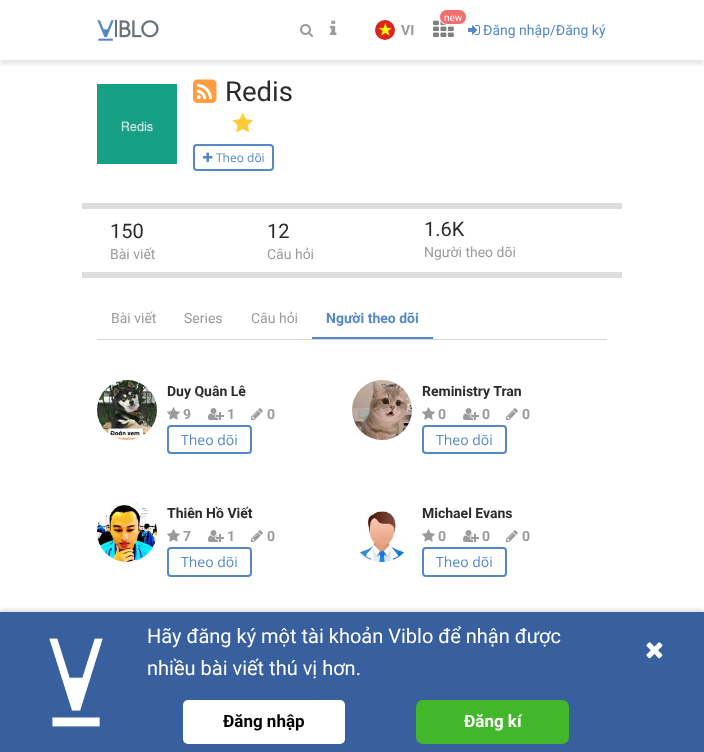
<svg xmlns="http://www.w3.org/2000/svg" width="704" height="752">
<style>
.a{font:10px Roboto;fill:#fff}
.b{font:bold 14px Roboto;fill:#9b9b9b}
.c{font:14px Roboto;fill:#5488c7}
.d{font:27.5px Roboto;fill:#292b2c}
.e{font:12px Open Sans;fill:#5488c7}
.f{font:20px Roboto;fill:#292b2c}
.g{font:14px Roboto;fill:#9b9b9b}
.h{font:bold 14px Roboto;fill:#5488c7}
.i{font:bold 14px Roboto;fill:#292b2c}
.j{font:14px Open Sans;fill:#5488c7}
.k{font:20px Roboto;fill:#fff}
.l{font:bold 17px Roboto;fill:#000}
.m{font:bold 17px Roboto;fill:#fff}
</style>
<defs>
<clipPath id="clip1"><path d="M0 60h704v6H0z"/></clipPath>
</defs>
<rect width="100%" height="100%" fill="#fff"/>
<g clip-path="url(#clip1)">
<path fill="#0000001a" filter="blur(2px)" d="M0 4h704v60H0z"/>
</g>
<image href="1.png" x="97" y="20" width="62" height="21"/>
<image href="2.png" x="300" y="24" width="13" height="13"/>
<image href="3.png" x="330" y="20" width="7" height="15"/>
<image href="4.png" x="433" y="20" width="21" height="17"/>
<rect fill="#f56c6c" stroke="#fff" x="439.5" y="9.5" width="27" height="15" rx="7.5"/>
<image href="5.png" x="375" y="20" width="20" height="20"/>
<image href="6.png" x="468" y="25" width="12" height="10"/>
<image href="7.png" x="97" y="84" width="80" height="80"/>
<image href="8.png" x="193" y="79" width="24" height="24"/>
<image href="9.png" x="232" y="112" width="21" height="21"/>
<rect fill="none" stroke="#5488c7" stroke-width="2" x="194" y="145" width="79" height="25" rx="3"/>
<image href="10.png" x="203" y="152" width="10" height="10"/>
<path fill="#ddd" d="M82 203h540v6H82z"/>
<path fill="#ddd" d="M82 272h540v6H82z"/>
<path fill="#d6d6d7" d="M97 339h510v1H97z"/>
<path fill="#5488c7" d="M312 337h121v2H312z"/>
<image href="11.png" x="97" y="380" width="60" height="60"/>
<image href="12.png" x="167" y="407" width="13" height="13"/>
<image href="13.png" x="208" y="408" width="16" height="12"/>
<image href="14.png" x="251" y="408" width="12" height="12"/>
<rect fill="none" stroke="#5488c7" stroke-width="2" x="168" y="426" width="83" height="27" rx="3"/>
<image href="15.png" x="352" y="380" width="60" height="60"/>
<image href="12.png" x="422" y="407" width="13" height="13"/>
<image href="13.png" x="463" y="408" width="16" height="12"/>
<image href="14.png" x="506" y="408" width="12" height="12"/>
<rect fill="none" stroke="#5488c7" stroke-width="2" x="423" y="426" width="83" height="27" rx="3"/>
<image href="16.png" x="97" y="503" width="60" height="59"/>
<image href="12.png" x="167" y="529" width="13" height="13"/>
<image href="13.png" x="208" y="530" width="16" height="12"/>
<image href="14.png" x="251" y="530" width="12" height="12"/>
<rect fill="none" stroke="#5488c7" stroke-width="2" x="168" y="548" width="83" height="28" rx="3"/>
<image href="17.png" x="359" y="511" width="46" height="51"/>
<image href="12.png" x="422" y="529" width="13" height="13"/>
<image href="13.png" x="463" y="530" width="16" height="12"/>
<image href="14.png" x="506" y="530" width="12" height="12"/>
<rect fill="none" stroke="#5488c7" stroke-width="2" x="423" y="548" width="83" height="28" rx="3"/>
<path fill="#00000026" filter="blur(2.5px)" d="M-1 610h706v142H-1z"/>
<path fill="#39609e" d="M0 612h704v140H0z"/>
<image href="18.png" x="49" y="638" width="54" height="90"/>
<rect fill="#fff" x="183" y="700" width="162" height="44" rx="5"/>
<rect fill="#42b72a" x="416" y="700" width="153" height="44" rx="7"/>
<image href="19.png" x="646" y="642" width="17" height="17"/>
<text class="a" x="444" y="21">new</text>
<text class="b" x="401" y="35">VI</text>
<text class="c" x="483" y="35">Đăng nhập/Đăng ký</text>
<text class="d" x="225" y="101">Redis</text>
<text class="e" x="216" y="162">Theo dõi</text>
<text class="f" x="110" y="238">150</text>
<text class="g" x="110" y="259">Bài viết</text>
<text class="f" x="267" y="238">12</text>
<text class="g" x="267" y="259">Câu hỏi</text>
<text class="f" x="424" y="236">1.6K</text>
<text class="g" x="424" y="257">Người theo dõi</text>
<text class="g" x="111" y="323">Bài viết</text>
<text class="g" x="184" y="323">Series</text>
<text class="g" x="251" y="323">Câu hỏi</text>
<text class="h" x="326" y="323">Người theo dõi</text>
<text class="i" x="167" y="396">Duy Quân Lê</text>
<text class="b" x="183" y="419">9</text>
<text class="b" x="227" y="419">1</text>
<text class="b" x="267" y="419">0</text>
<text class="j" x="181" y="445">Theo dõi</text>
<text class="i" x="422" y="396">Reministry Tran</text>
<text class="b" x="438" y="419">0</text>
<text class="b" x="482" y="419">0</text>
<text class="b" x="522" y="419">0</text>
<text class="j" x="436" y="445">Theo dõi</text>
<text class="i" x="167" y="518">Thiên Hồ Viết</text>
<text class="b" x="183" y="541">7</text>
<text class="b" x="227" y="541">1</text>
<text class="b" x="267" y="541">0</text>
<text class="j" x="181" y="567">Theo dõi</text>
<text class="i" x="422" y="518">Michael Evans</text>
<text class="b" x="438" y="541">0</text>
<text class="b" x="482" y="541">0</text>
<text class="b" x="522" y="541">0</text>
<text class="j" x="436" y="567">Theo dõi</text>
<text class="k" x="147" y="643">Hãy đăng ký một tài khoản Viblo để nhận được</text>
<text class="k" x="147" y="675">nhiều bài viết thú vị hơn.</text>
<text class="l" x="223" y="727">Đăng nhập</text>
<text class="m" x="464" y="727">Đăng kí</text>
</svg>
